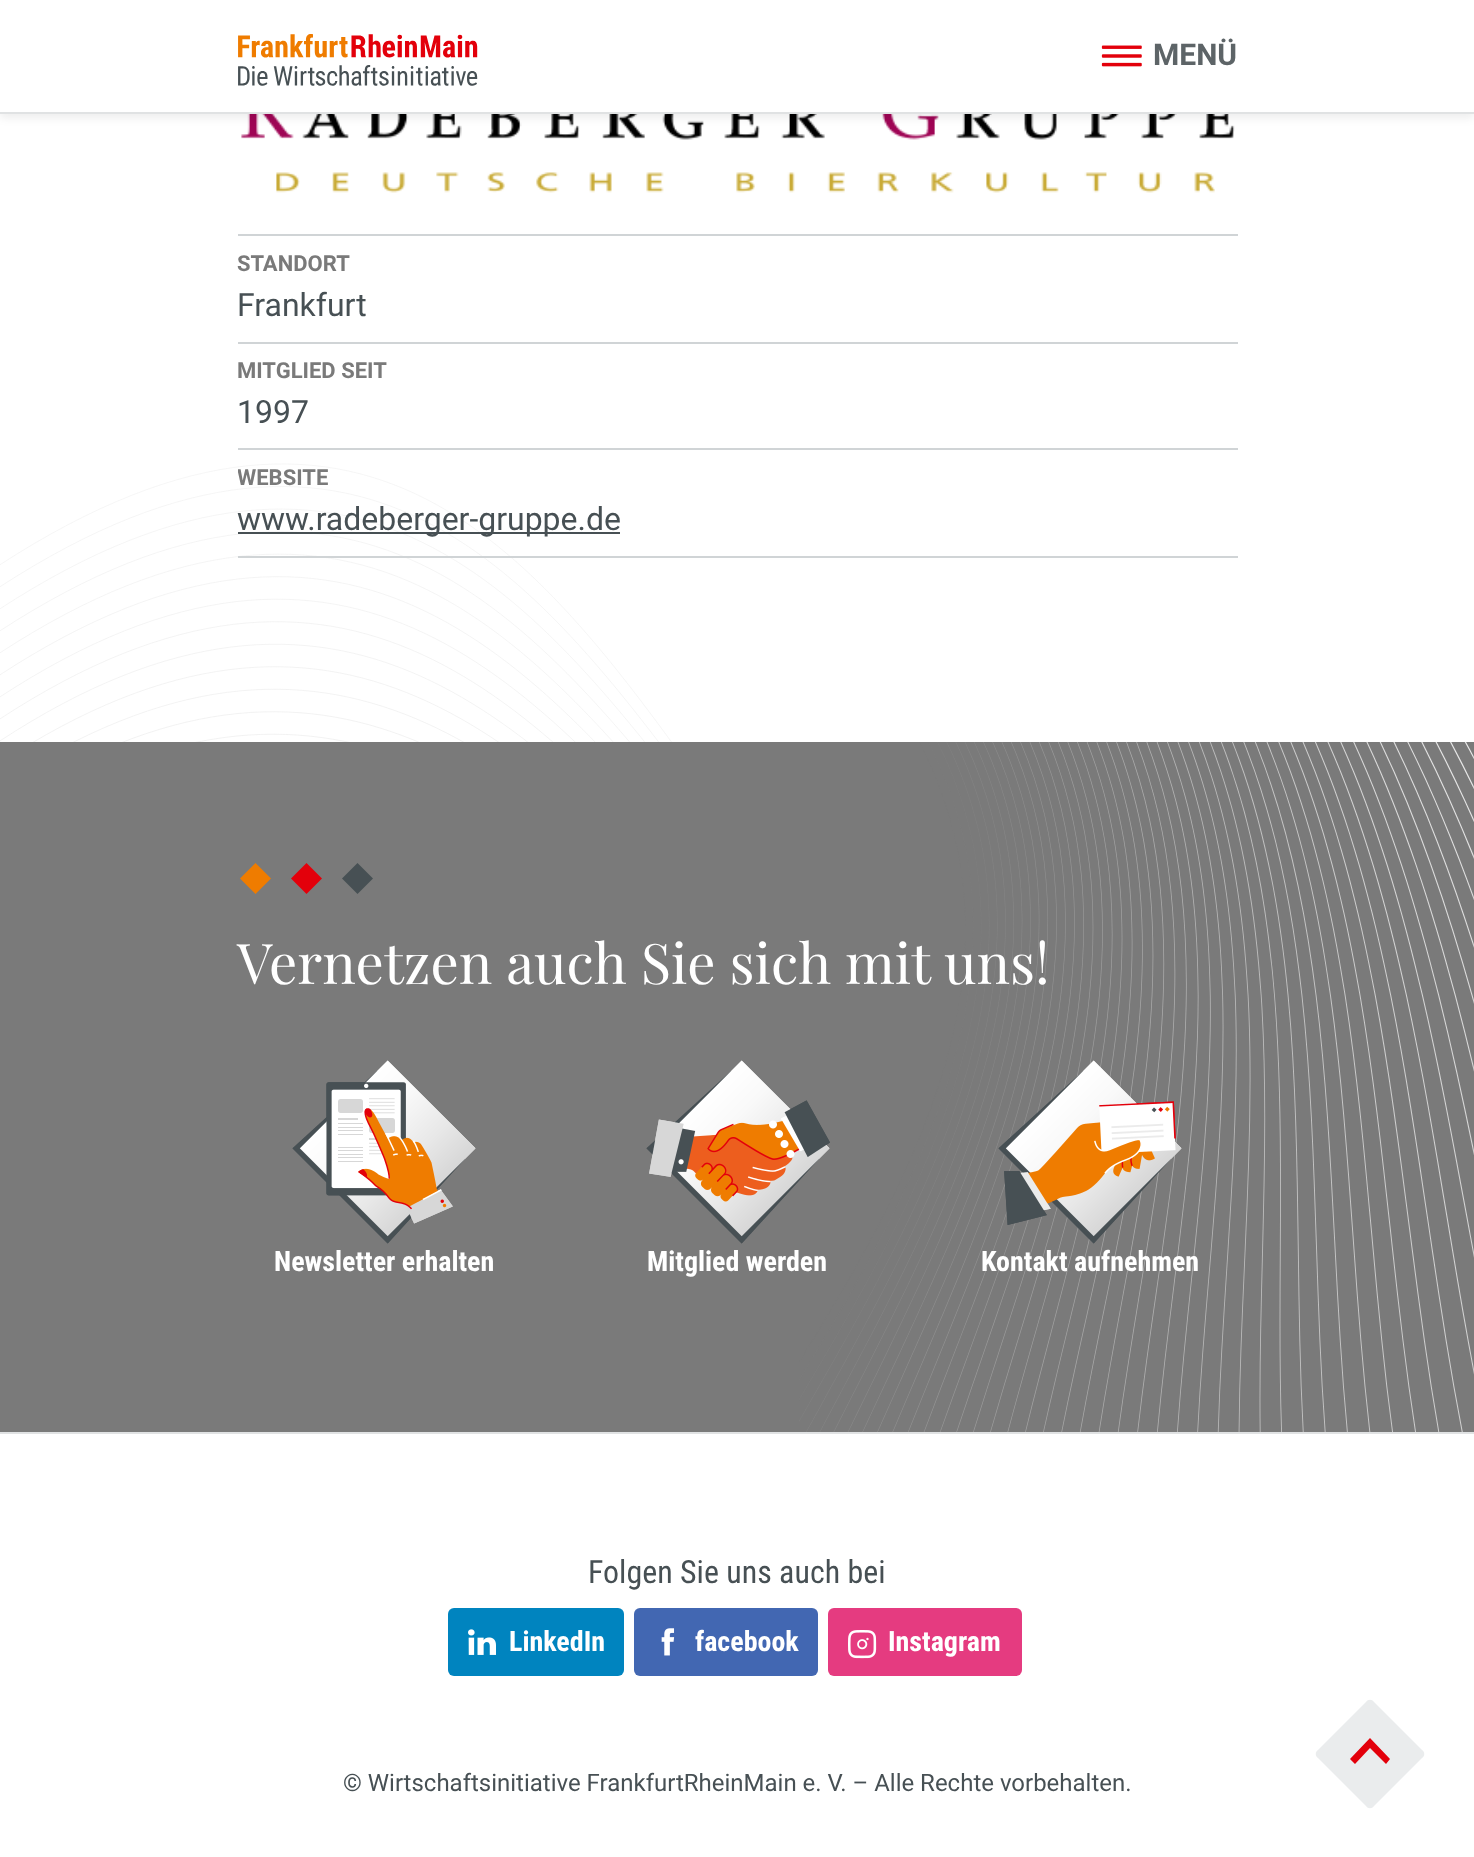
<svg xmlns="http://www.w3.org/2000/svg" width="1474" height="1857">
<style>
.a{font:bold 30px Roboto;fill:#5d6467}
.b{font:bold 22px Roboto;fill:#7a7a7a}
.c{font:32px Roboto;fill:#475054}
.d{font:56px Playfair Display;fill:#fff}
.e{font:bold 28px Roboto Condensed;fill:#fff}
.f{font:32px Roboto Condensed;fill:#475054}
.g{font:24px Roboto;fill:#475054}
</style>
<defs>
<clipPath id="clip1"><path d="M238 236h1000v322H238z"/></clipPath>
</defs>
<rect width="100%" height="100%" fill="#fff"/>
<image href="1.png" x="0" y="463" width="672" height="279"/>
<image href="4.png" x="241" y="114" width="994" height="79"/>
<path fill="#00000012" filter="blur(4px)" d="M0 4h1474v114H0z"/>
<path fill="#fff" d="M0 0h1474v112H0z"/>
<path fill="#e0e2e3" d="M0 112h1474v2H0z"/>
<image href="2.png" x="238" y="34" width="240" height="52"/>
<image href="3.png" x="1101" y="45" width="41" height="22"/>
<path fill="#d0d4d6" d="M238 234h1000v2H238z"/>
<path fill="#d0d4d6" d="M238 342h1000v2H238z"/>
<path fill="#d0d4d6" d="M238 448h1000v2H238z"/>
<path fill="#d0d4d6" d="M238 556h1000v2H238z"/>
<path fill="#475054" d="M238 532h382v2H238z"/>
<path fill="#7a7a7a" d="M0 742h1474v690H0z"/>
<image href="5.png" x="799" y="742" width="675" height="690"/>
<path fill="#ef7c00" d="M255.5 863l15.5 15.5l-15.5 15.5l-15.5-15.5z"/>
<path fill="#e3000b" d="M306.5 863l15.5 15.5l-15.5 15.5l-15.5-15.5z"/>
<path fill="#475054" d="M357.5 863l15.5 15.5l-15.5 15.5l-15.5-15.5z"/>
<image href="6.png" x="292" y="1060" width="184" height="184"/>
<image href="7.png" x="292" y="1060" width="184" height="184"/>
<image href="8.png" x="646" y="1060" width="184" height="184"/>
<image href="9.png" x="646" y="1060" width="184" height="184"/>
<image href="10.png" x="998" y="1060" width="184" height="184"/>
<image href="11.png" x="998" y="1060" width="184" height="184"/>
<path fill="#e0e2e3" d="M0 1432h1474v2H0z"/>
<rect fill="#0084bf" x="448" y="1608" width="176" height="68" rx="6"/>
<image href="12.png" x="468" y="1629" width="28" height="26"/>
<rect fill="#4267b2" x="634" y="1608" width="184" height="68" rx="6"/>
<image href="13.png" x="661" y="1628" width="14" height="28"/>
<rect fill="#e53b80" x="828" y="1608" width="194" height="68" rx="6"/>
<image href="14.png" x="848" y="1630" width="29" height="29"/>
<path fill="#eaeced" d="M1374 1702l48 48c3 2 3 6 0 8l-48 48c-2 3-6 3-8 0l-48-48c-3-2-3-6 0-8l48-48c2-3 6-3 8 0z"/>
<path fill="#e3000b" d="M1350 1759l5 5l15-16l16 16l4-5l-20-21z"/>
<text class="a" x="1153" y="65">MENÜ</text>
<text class="b" x="237" y="271">STANDORT</text>
<text class="c" x="237" y="316">Frankfurt</text>
<text class="b" x="237" y="378">MITGLIED SEIT</text>
<text class="c" x="237" y="423">1997</text>
<g clip-path="url(#clip1)">
<text class="b" x="237" y="485">WEBSITE</text>
</g>
<text class="c" x="237" y="530">www.radeberger-gruppe.de</text>
<text class="d" x="237" y="984">Vernetzen auch Sie sich mit uns!</text>
<text class="e" x="274" y="1271">Newsletter erhalten</text>
<text class="e" x="647" y="1271">Mitglied werden</text>
<text class="e" x="981" y="1271">Kontakt aufnehmen</text>
<text class="f" x="588" y="1583">Folgen Sie uns auch bei</text>
<text class="e" x="509" y="1651">LinkedIn</text>
<text class="e" x="695" y="1651">facebook</text>
<text class="e" x="888" y="1651">Instagram</text>
<text class="g" x="343" y="1791">© Wirtschaftsinitiative FrankfurtRheinMain e. V. – Alle Rechte vorbehalten.</text>
</svg>
